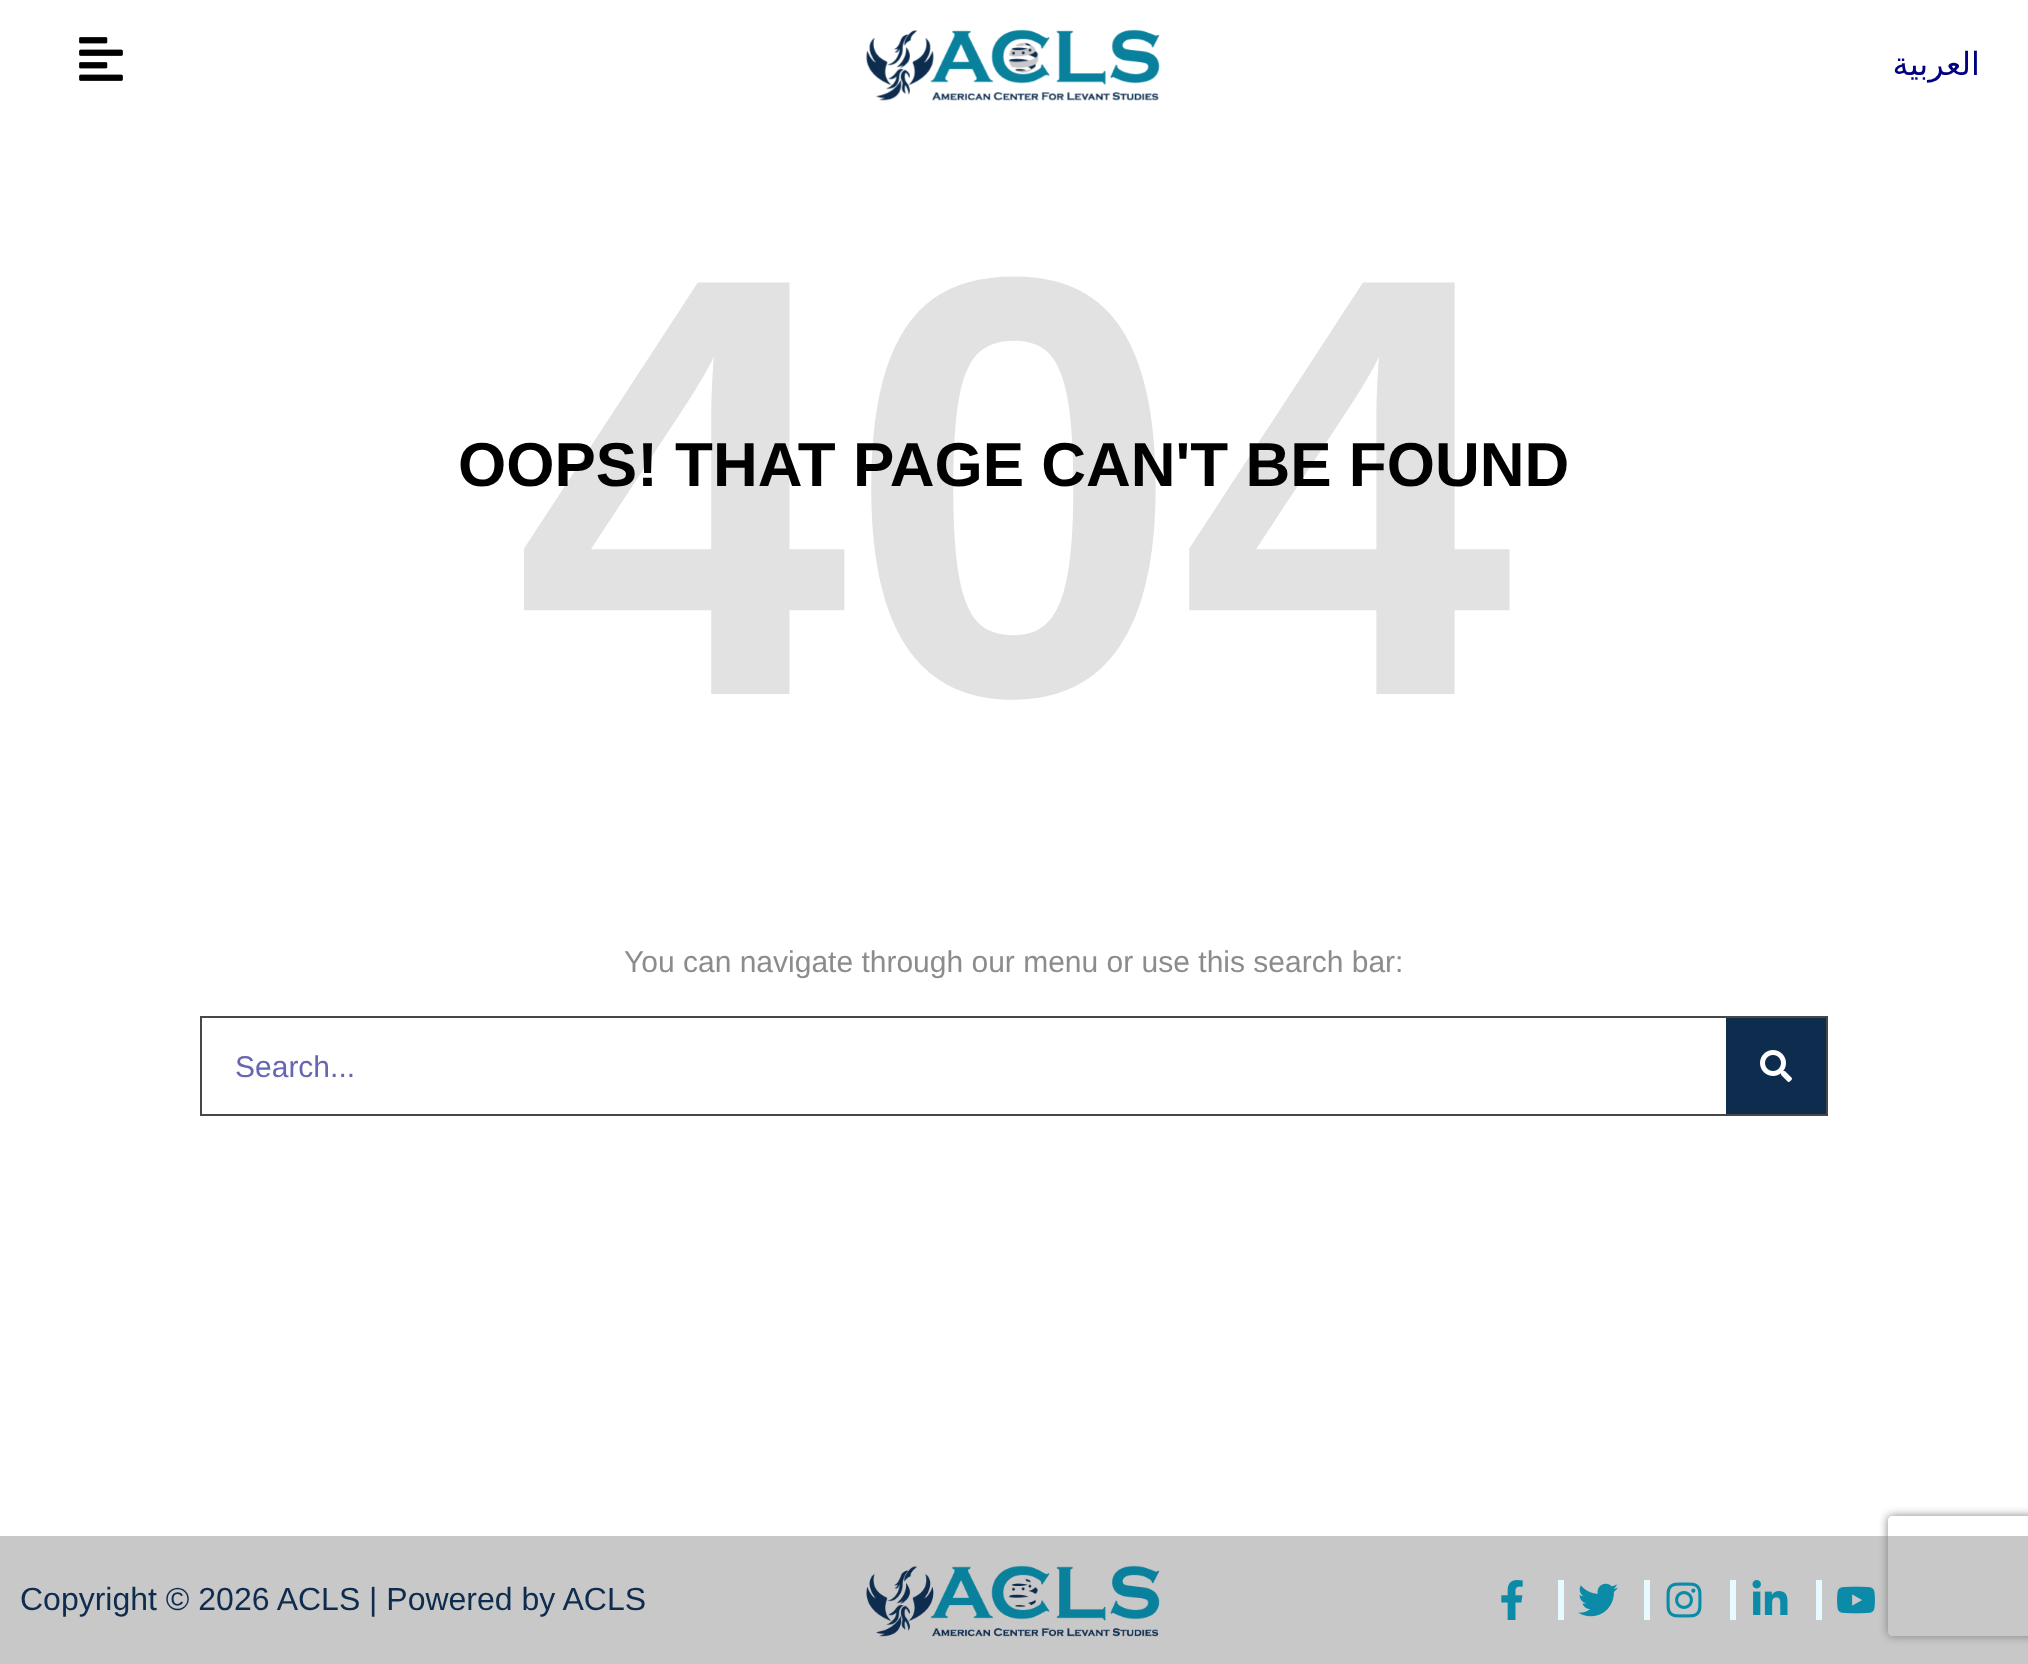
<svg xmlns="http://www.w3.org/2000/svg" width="2028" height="1664">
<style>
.a{font:32px DejaVu Sans;direction:rtl;fill:#000080}
.b{font:bold 598px Liberation Sans;fill:#e2e2e2}
.c{font:bold 62px Liberation Sans;fill:#000}
.d{font:30px Liberation Sans;fill:#8c8c8c}
.e{font:30px Liberation Sans;fill:#6666b3}
.f{font:32px Liberation Sans;fill:#0d2c4e}
</style>
<defs>
<clipPath id="clip1"><path d="M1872 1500h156v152h-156zm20 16h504c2 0 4 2 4 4v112c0 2-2 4-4 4h-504c-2 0-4-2-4-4v-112c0-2 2-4 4-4z" clip-rule="evenodd"/></clipPath>
</defs>
<rect width="100%" height="100%" fill="#fff"/>
<image href="1.png" x="79" y="37" width="44" height="44"/>
<image href="2.png" x="866" y="29" width="294" height="72"/>
<path fill="none" stroke="#474747" stroke-width="2" d="M201 1017h1626v98H201z"/>
<path fill="#0d2c4e" d="M1726 1018h100v96H1726z"/>
<image href="3.png" x="1760" y="1050" width="32" height="32"/>
<path fill="#c8c8c8" d="M0 1536h2028v128H0z"/>
<image href="4.png" x="866" y="1565" width="294" height="72"/>
<image href="5.png" x="1501" y="1580" width="22" height="40"/>
<path fill="#e6faff" d="M1558 1580h6v40H1558z"/>
<image href="6.png" x="1578" y="1583" width="40" height="34"/>
<path fill="#e6faff" d="M1644 1580h6v40H1644z"/>
<image href="7.png" x="1666" y="1582" width="36" height="36"/>
<path fill="#e6faff" d="M1730 1580h6v40H1730z"/>
<image href="8.png" x="1752" y="1580" width="36" height="35"/>
<path fill="#e6faff" d="M1816 1580h6v40H1816z"/>
<image href="9.png" x="1837" y="1586" width="38" height="28"/>
<g clip-path="url(#clip1)">
<rect fill="#808080" filter="blur(5px)" x="1888" y="1516" width="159" height="120" rx="4"/>
</g>
<text class="a" x="1980" y="75">العربية</text>
<text class="b" x="515" y="694">404</text>
<text class="c" x="458" y="486">OOPS! THAT PAGE CAN'T BE FOUND</text>
<text class="d" x="624" y="972">You can navigate through our menu or use this search bar:</text>
<text class="e" x="235" y="1077">Search...</text>
<text class="f" x="20" y="1610">Copyright © 2026 ACLS | Powered by ACLS</text>
</svg>
